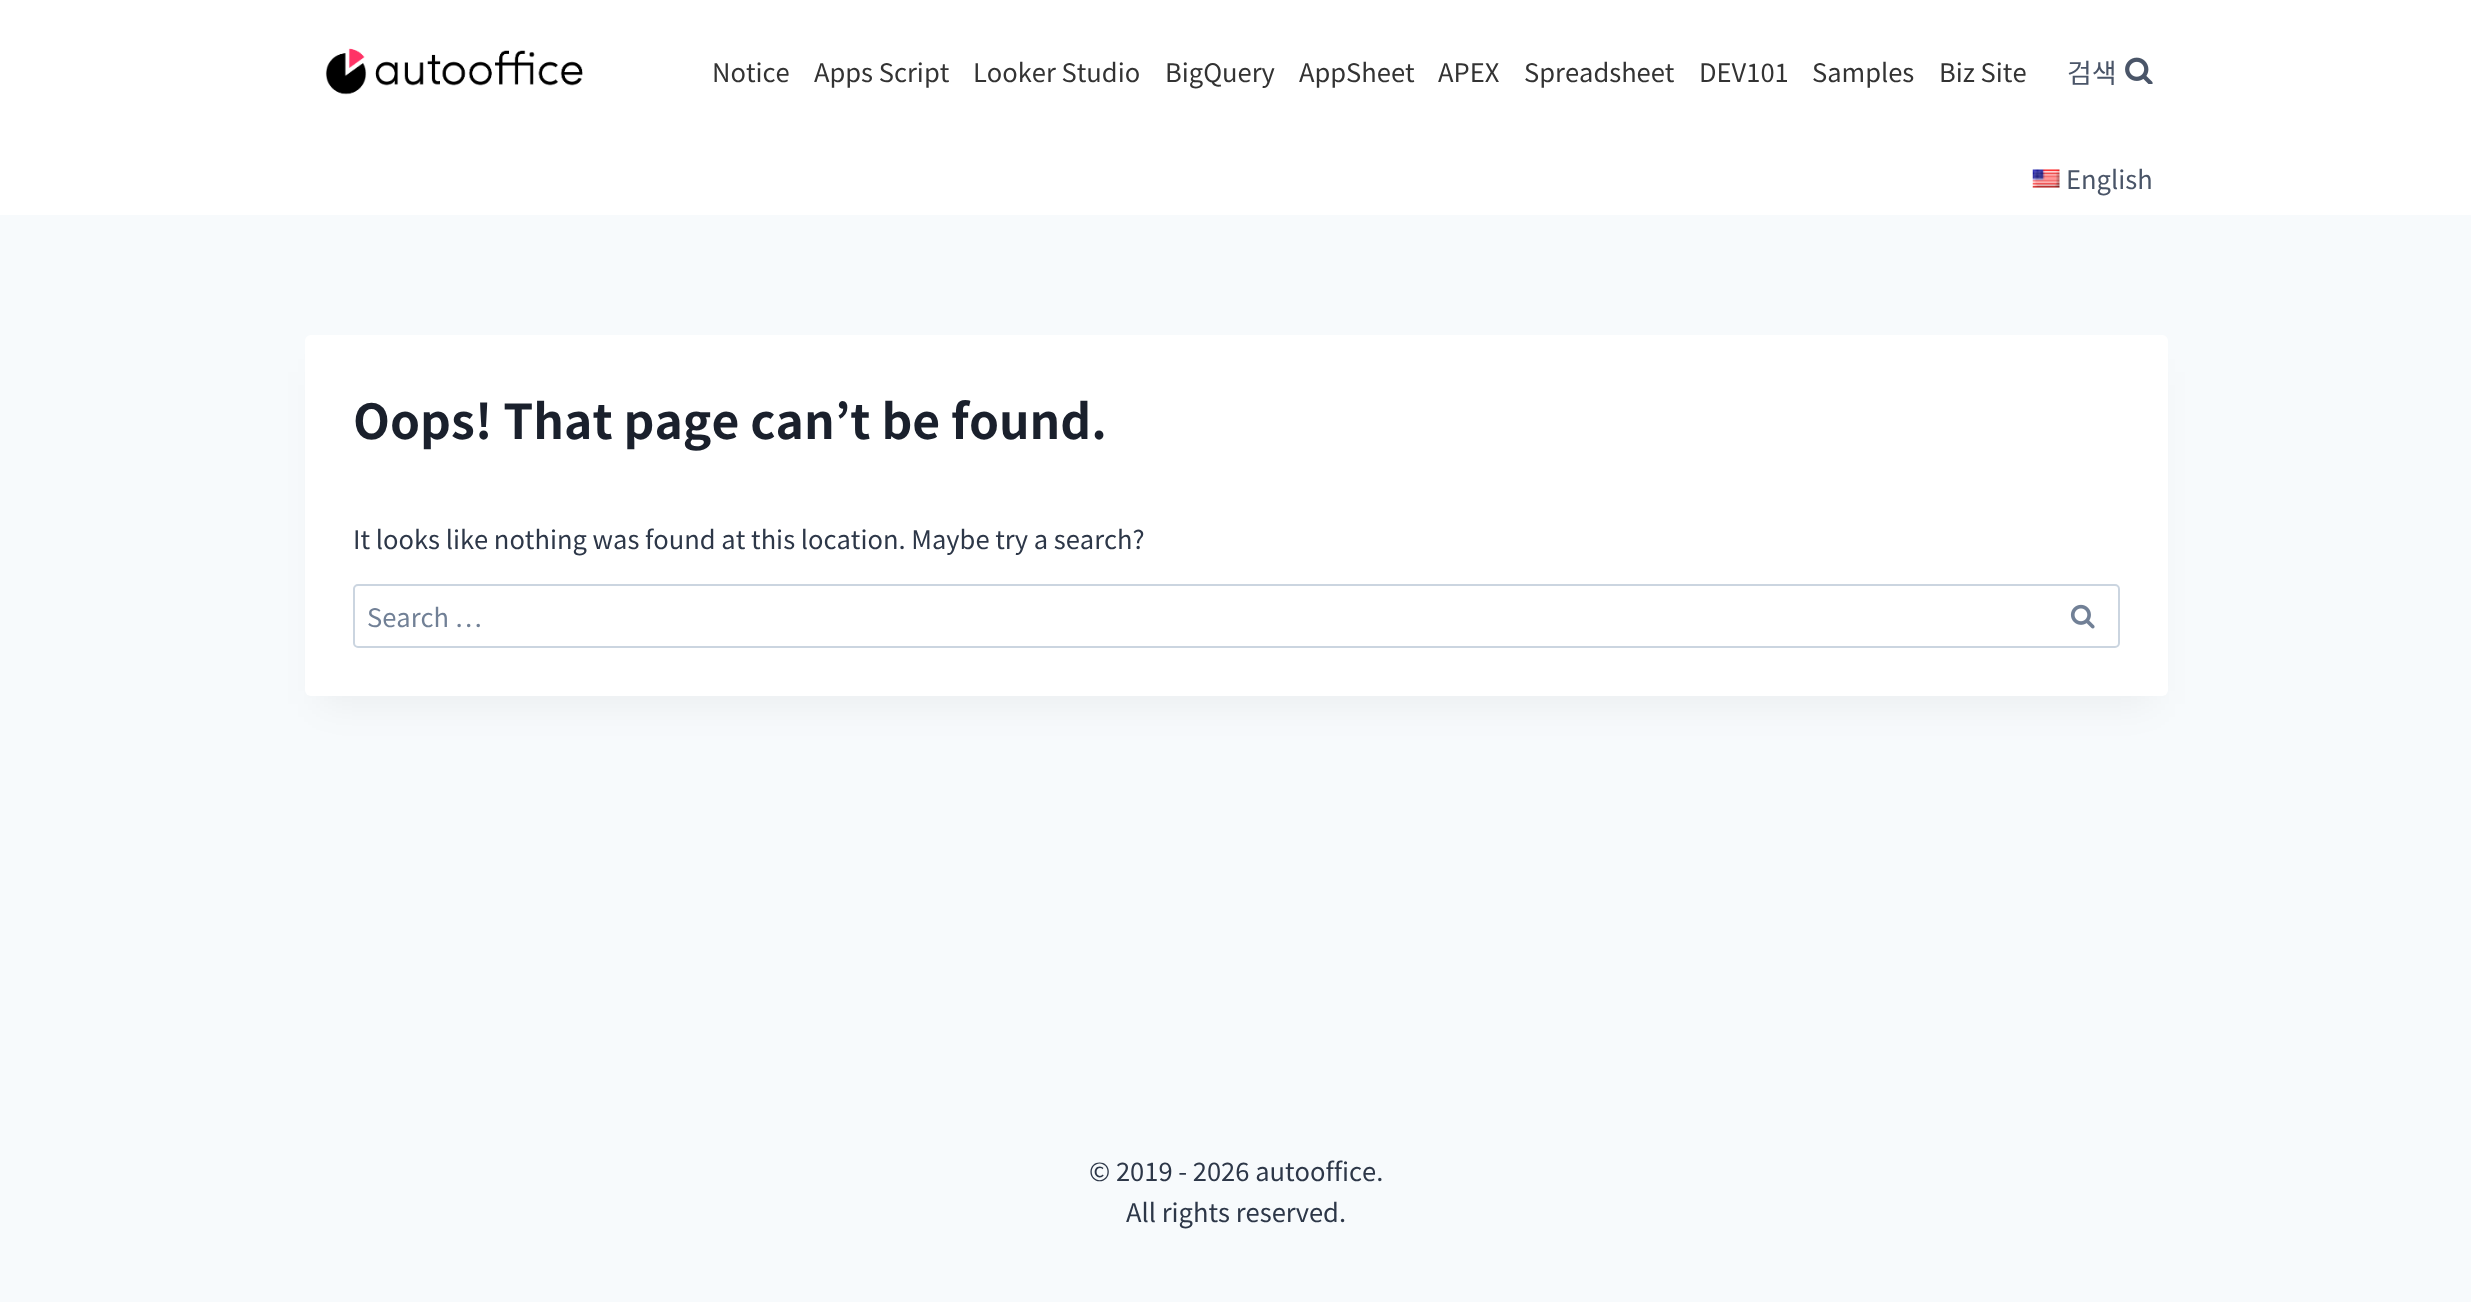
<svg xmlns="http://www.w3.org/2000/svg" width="2471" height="1302">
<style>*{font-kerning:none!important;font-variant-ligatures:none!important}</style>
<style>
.a{font:25.5px Noto Sans KR;fill:#333}
.b{font:27px Noto Sans KR;fill:#4a5568}
.c{font:25.5px Noto Sans KR;fill:#4a5568}
.d{font:bold 48px Noto Sans KR;fill:#1a202c}
.e{font:25.5px Noto Sans KR;fill:#2d3748}
.f{font:25.5px Noto Sans KR;fill:#718096}
</style>
<rect width="100%" height="100%" fill="#f7fafc"/>
<path fill="#fff" d="M0 0h2471v215H0z"/>
<image href="1.png" x="325" y="48" width="258" height="47"/>
<image href="2.png" x="2125" y="57" width="28" height="27"/>
<image href="3.png" x="2032" y="169" width="28" height="19"/>
<path fill="#0000000d" filter="blur(19px)" d="M320 372h1833v332H320z"/>
<rect fill="#fff" x="305" y="335" width="1863" height="361" rx="6"/>
<rect fill="none" stroke="#cbd5e0" stroke-width="2" x="354" y="585" width="1765" height="62" rx="4"/>
<image href="4.png" x="2070" y="604" width="25" height="25"/>
<text class="a" x="712" y="82">Notice</text>
<text class="a" x="814" y="82">Apps Script</text>
<text class="a" x="973" y="82">Looker Studio</text>
<text class="a" x="1165" y="82">BigQuery</text>
<text class="a" x="1299" y="82">AppSheet</text>
<text class="a" x="1438" y="82">APEX</text>
<text class="a" x="1524" y="82">Spreadsheet</text>
<text class="a" x="1699" y="82">DEV101</text>
<text class="a" x="1812" y="82">Samples</text>
<text class="a" x="1939" y="82">Biz Site</text>
<text class="b" x="2067" y="83">검색</text>
<text class="c" x="2066" y="189">English</text>
<text class="d" x="353" y="439">Oops! That page can’t be found.</text>
<text class="e" x="353" y="549">It looks like nothing was found at this location. Maybe try a search?</text>
<text class="f" x="367" y="627">Search …</text>
<text class="e" x="1089" y="1181">© 2019 - 2026 autooffice.</text>
<text class="e" x="1126" y="1222">All rights reserved.</text>
</svg>
